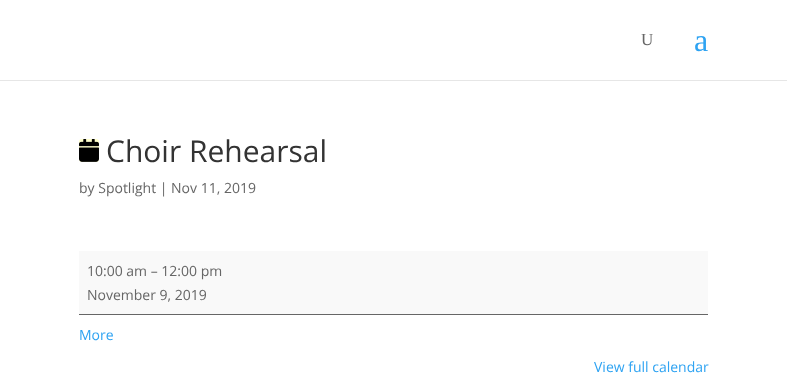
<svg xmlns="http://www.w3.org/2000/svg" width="787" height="390">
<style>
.a{font:17px Liberation Serif;fill:#666}
.b{font:32px Liberation Serif;fill:#2ea3f2}
.c{font:30px Open Sans;fill:#333}
.d{font:14px Open Sans;fill:#666}
.e{font:14px Open Sans;fill:#2ea3f2}
</style>
<rect width="100%" height="100%" fill="#fff"/>
<path fill="#e6e6e6" d="M0 80h787v1H0z"/>
<rect fill="#ffc" x="79" y="139" width="20" height="23" rx="3"/>
<image href="1.png" x="79" y="139" width="20" height="23"/>
<path fill="#f9f9f9" d="M79 251h629v63H79z"/>
<path fill="#666" d="M79 314h629v1H79z"/>
<text class="a" x="641" y="45">U</text>
<text class="b" x="694" y="51">a</text>
<text class="c" x="106" y="162">Choir Rehearsal</text>
<text class="d" x="79" y="193">by Spotlight | Nov 11, 2019</text>
<text class="d" x="87" y="276">10:00 am – 12:00 pm</text>
<text class="d" x="87" y="300">November 9, 2019</text>
<text class="e" x="79" y="340">More</text>
<text class="e" x="594" y="372">View full calendar</text>
</svg>
